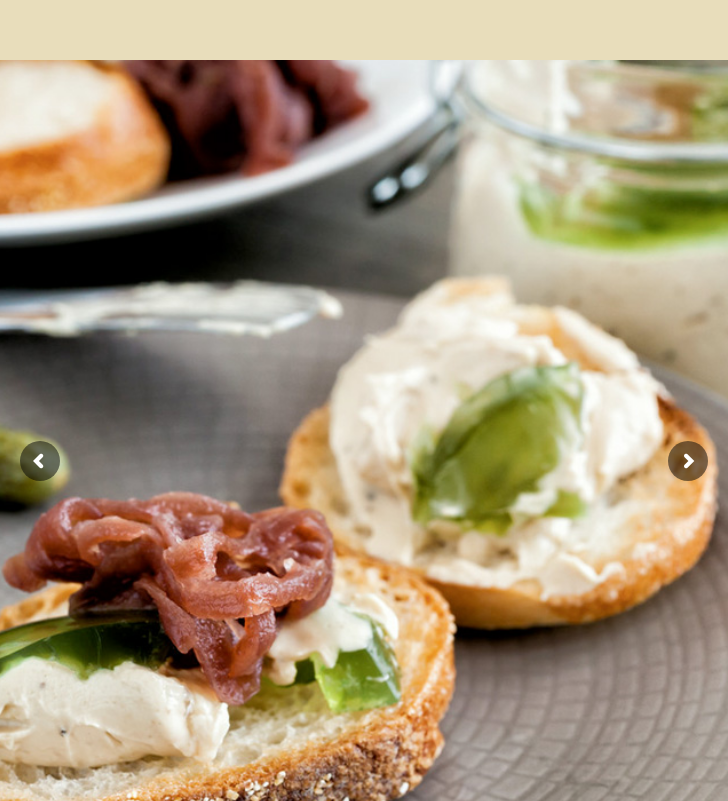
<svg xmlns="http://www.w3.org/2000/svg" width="728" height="801">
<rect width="100%" height="100%" fill="#fff"/>
<path fill="#e8ddbb" d="M0 0h728v60H0z"/>
<image href="1.png" x="0" y="60" width="728" height="741"/>
<circle fill="#00000080" cx="40" cy="461" r="20"/>
<image href="2.png" x="33" y="453" width="11" height="16"/>
<circle fill="#00000080" cx="688" cy="461" r="20"/>
<image href="3.png" x="684" y="453" width="11" height="16"/>
</svg>
